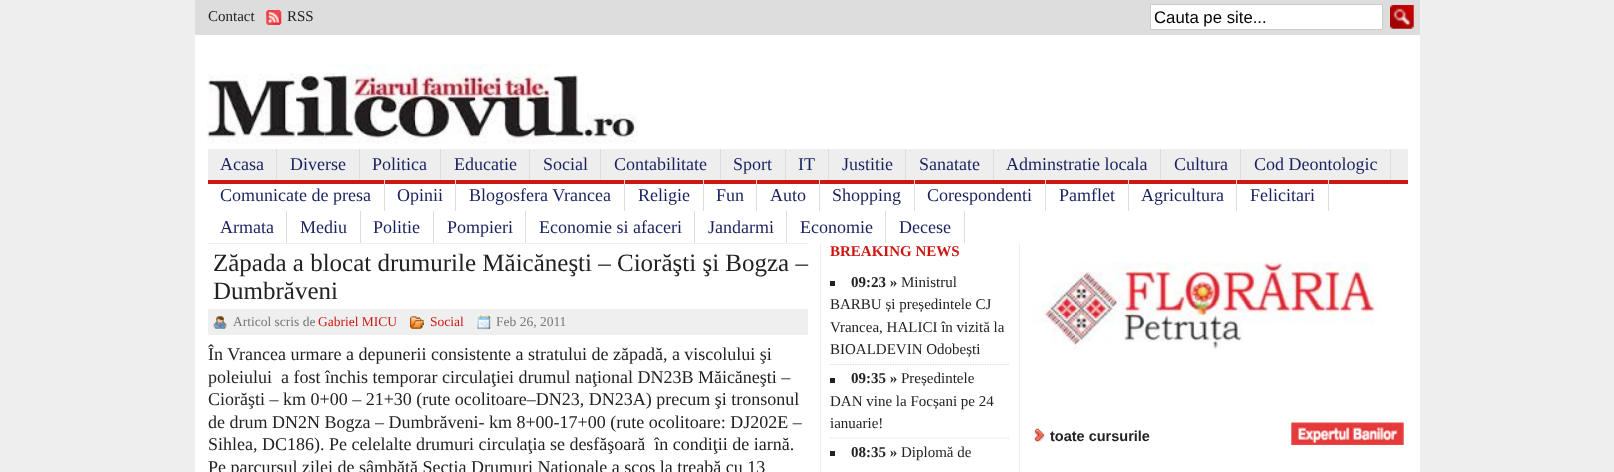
<svg xmlns="http://www.w3.org/2000/svg" width="1614" height="472">
<style>
.a{font:15px Liberation Serif;fill:#222}
.b{font:16.75px Liberation Sans;fill:#000}
.c{font:18px Liberation Serif;fill:#18215e}
.d{font:25px Liberation Serif;fill:#222}
.e{font:13.5px Liberation Serif;fill:#777}
.f{font:13.5px Liberation Serif;fill:#cd1713}
.g{font:18px Liberation Serif;fill:#222}
.h{font:bold 15px Liberation Serif;fill:#cd1713}
.i{font:bold 15px Liberation Serif;fill:#222}
.j{font:bold 14.5px Liberation Sans;fill:#222}
</style>
<rect width="100%" height="100%" fill="#eee"/>
<path fill="#ddd" d="M195 0h1225v35H195z"/>
<image href="1.png" x="266" y="10" width="16" height="15"/>
<path fill="#fff" stroke="#ccc" d="M1150.5 4.5h232v25H1150.5z"/>
<image href="2.png" x="1390" y="5" width="24" height="24"/>
<path fill="#fff" d="M195 35h1225v437H195z"/>
<image href="3.png" x="207" y="64" width="431" height="80"/>
<path fill="#eee" d="M208 149h1200v31H208z"/>
<path fill="#cd1713" d="M208 180h1200v4H208z"/>
<path fill="#ddd" d="M276 149h1v31H276z"/>
<path fill="#ddd" d="M359 149h1v31H359z"/>
<path fill="#ddd" d="M440 149h1v31H440z"/>
<path fill="#ddd" d="M529 149h1v31H529z"/>
<path fill="#ddd" d="M600 149h1v31H600z"/>
<path fill="#ddd" d="M720 149h1v31H720z"/>
<path fill="#ddd" d="M785 149h1v31H785z"/>
<path fill="#ddd" d="M828 149h1v31H828z"/>
<path fill="#ddd" d="M905 149h1v31H905z"/>
<path fill="#ddd" d="M993 149h1v31H993z"/>
<path fill="#ddd" d="M1160 149h1v31H1160z"/>
<path fill="#ddd" d="M1240 149h1v31H1240z"/>
<path fill="#ddd" d="M1390 149h1v31H1390z"/>
<path fill="#ddd" d="M384 180h1v31H384z"/>
<path fill="#ddd" d="M455 180h1v31H455z"/>
<path fill="#ddd" d="M624 180h1v31H624z"/>
<path fill="#ddd" d="M703 180h1v31H703z"/>
<path fill="#ddd" d="M756 180h1v31H756z"/>
<path fill="#ddd" d="M819 180h1v31H819z"/>
<path fill="#ddd" d="M914 180h1v31H914z"/>
<path fill="#ddd" d="M1045 180h1v31H1045z"/>
<path fill="#ddd" d="M1128 180h1v31H1128z"/>
<path fill="#ddd" d="M1236 180h1v31H1236z"/>
<path fill="#ddd" d="M1328 180h1v31H1328z"/>
<path fill="#ddd" d="M286 211h1v32H286z"/>
<path fill="#ddd" d="M360 211h1v32H360z"/>
<path fill="#ddd" d="M433 211h1v32H433z"/>
<path fill="#ddd" d="M525 211h1v32H525z"/>
<path fill="#ddd" d="M694 211h1v32H694z"/>
<path fill="#ddd" d="M786 211h1v32H786z"/>
<path fill="#ddd" d="M885 211h1v32H885z"/>
<path fill="#ddd" d="M964 211h1v32H964z"/>
<path fill="#efefef" d="M208 243h600v1H208z"/>
<path fill="#efefef" d="M208 309h600v26H208z"/>
<image href="4.png" x="213" y="316" width="14" height="13"/>
<image href="5.png" x="410" y="316" width="14" height="13"/>
<image href="6.png" x="476" y="314" width="16" height="16"/>
<path fill="#eee" d="M1019 243h1v229H1019z"/>
<path fill="#eee" d="M820 243h1v229H820z"/>
<path fill="none" stroke="#d3d9eb" stroke-width="1.2" stroke-dasharray="1.25 1.25" d="M830 364.5h180"/>
<path fill="#222" d="M830 281h5v5H830z"/>
<path fill="none" stroke="#d3d9eb" stroke-width="1.2" stroke-dasharray="1.25 1.25" d="M830 438h180"/>
<path fill="#222" d="M830 378h5v5H830z"/>
<path fill="#222" d="M830 451h5v5H830z"/>
<image href="7.png" x="1033" y="262" width="347" height="88"/>
<image href="8.png" x="1034" y="428" width="11" height="14"/>
<image href="9.png" x="1291" y="422" width="113" height="23"/>
<text class="a" x="208" y="21">Contact</text>
<text class="a" x="287" y="21">RSS</text>
<text class="b" x="1154" y="23">Cauta pe site...</text>
<text class="c" x="220" y="170">Acasa</text>
<text class="c" x="290" y="170">Diverse</text>
<text class="c" x="372" y="170">Politica</text>
<text class="c" x="454" y="170">Educatie</text>
<text class="c" x="543" y="170">Social</text>
<text class="c" x="614" y="170">Contabilitate</text>
<text class="c" x="733" y="170">Sport</text>
<text class="c" x="798" y="170">IT</text>
<text class="c" x="842" y="170">Justitie</text>
<text class="c" x="919" y="170">Sanatate</text>
<text class="c" x="1006" y="170">Adminstratie locala</text>
<text class="c" x="1174" y="170">Cultura</text>
<text class="c" x="1254" y="170">Cod Deontologic</text>
<text class="c" x="220" y="201">Comunicate de presa</text>
<text class="c" x="397" y="201">Opinii</text>
<text class="c" x="469" y="201">Blogosfera Vrancea</text>
<text class="c" x="638" y="201">Religie</text>
<text class="c" x="716" y="201">Fun</text>
<text class="c" x="770" y="201">Auto</text>
<text class="c" x="832" y="201">Shopping</text>
<text class="c" x="927" y="201">Corespondenti</text>
<text class="c" x="1059" y="201">Pamflet</text>
<text class="c" x="1141" y="201">Agricultura</text>
<text class="c" x="1250" y="201">Felicitari</text>
<text class="c" x="220" y="233">Armata</text>
<text class="c" x="300" y="233">Mediu</text>
<text class="c" x="373" y="233">Politie</text>
<text class="c" x="447" y="233">Pompieri</text>
<text class="c" x="539" y="233">Economie si afaceri</text>
<text class="c" x="708" y="233">Jandarmi</text>
<text class="c" x="800" y="233">Economie</text>
<text class="c" x="899" y="233">Decese</text>
<text class="d" x="213" y="271">Zăpada a blocat drumurile Măicăneşti – Ciorăşti şi Bogza –</text>
<text class="d" x="213" y="299">Dumbrăveni</text>
<text class="e" x="233" y="326">Articol scris de</text>
<text class="f" x="318" y="326">Gabriel MICU</text>
<text class="f" x="430" y="326">Social</text>
<text class="e" x="496" y="326">Feb 26, 2011</text>
<text class="g" x="208" y="360">În Vrancea urmare a depunerii consistente a stratului de zăpadă, a viscolului şi</text>
<text class="g" xml:space="preserve" x="208" y="383">poleiului  a fost închis temporar circulaţiei drumul naţional DN23B Măicăneşti –</text>
<text class="g" x="208" y="405">Ciorăşti – km 0+00 – 21+30 (rute ocolitoare–DN23, DN23A) precum şi tronsonul</text>
<text class="g" x="208" y="428">de drum DN2N Bogza – Dumbrăveni- km 8+00-17+00 (rute ocolitoare: DJ202E –</text>
<text class="g" xml:space="preserve" x="208" y="450">Sihlea, DC186). Pe celelalte drumuri circulaţia se desfăşoară  în condiţii de iarnă.</text>
<text class="g" x="208" y="473">Pe parcursul zilei de sâmbătă Secţia Drumuri Naţionale a scos la treabă cu 13</text>
<text class="h" x="830" y="256">BREAKING NEWS</text>
<text class="i" x="851" y="287">09:23 »</text>
<text class="a" x="901" y="287">Ministrul</text>
<text class="a" x="830" y="309">BARBU și președintele CJ</text>
<text class="a" x="830" y="332">Vrancea, HALICI în vizită la</text>
<text class="a" x="830" y="354">BIOALDEVIN Odobești</text>
<text class="i" x="851" y="383">09:35 »</text>
<text class="a" x="901" y="383">Președintele</text>
<text class="a" x="830" y="406">DAN vine la Focșani pe 24</text>
<text class="a" x="830" y="428">ianuarie!</text>
<text class="i" x="851" y="457">08:35 »</text>
<text class="a" x="901" y="457">Diplomă de</text>
<text class="j" x="1050" y="441">toate cursurile</text>
</svg>
